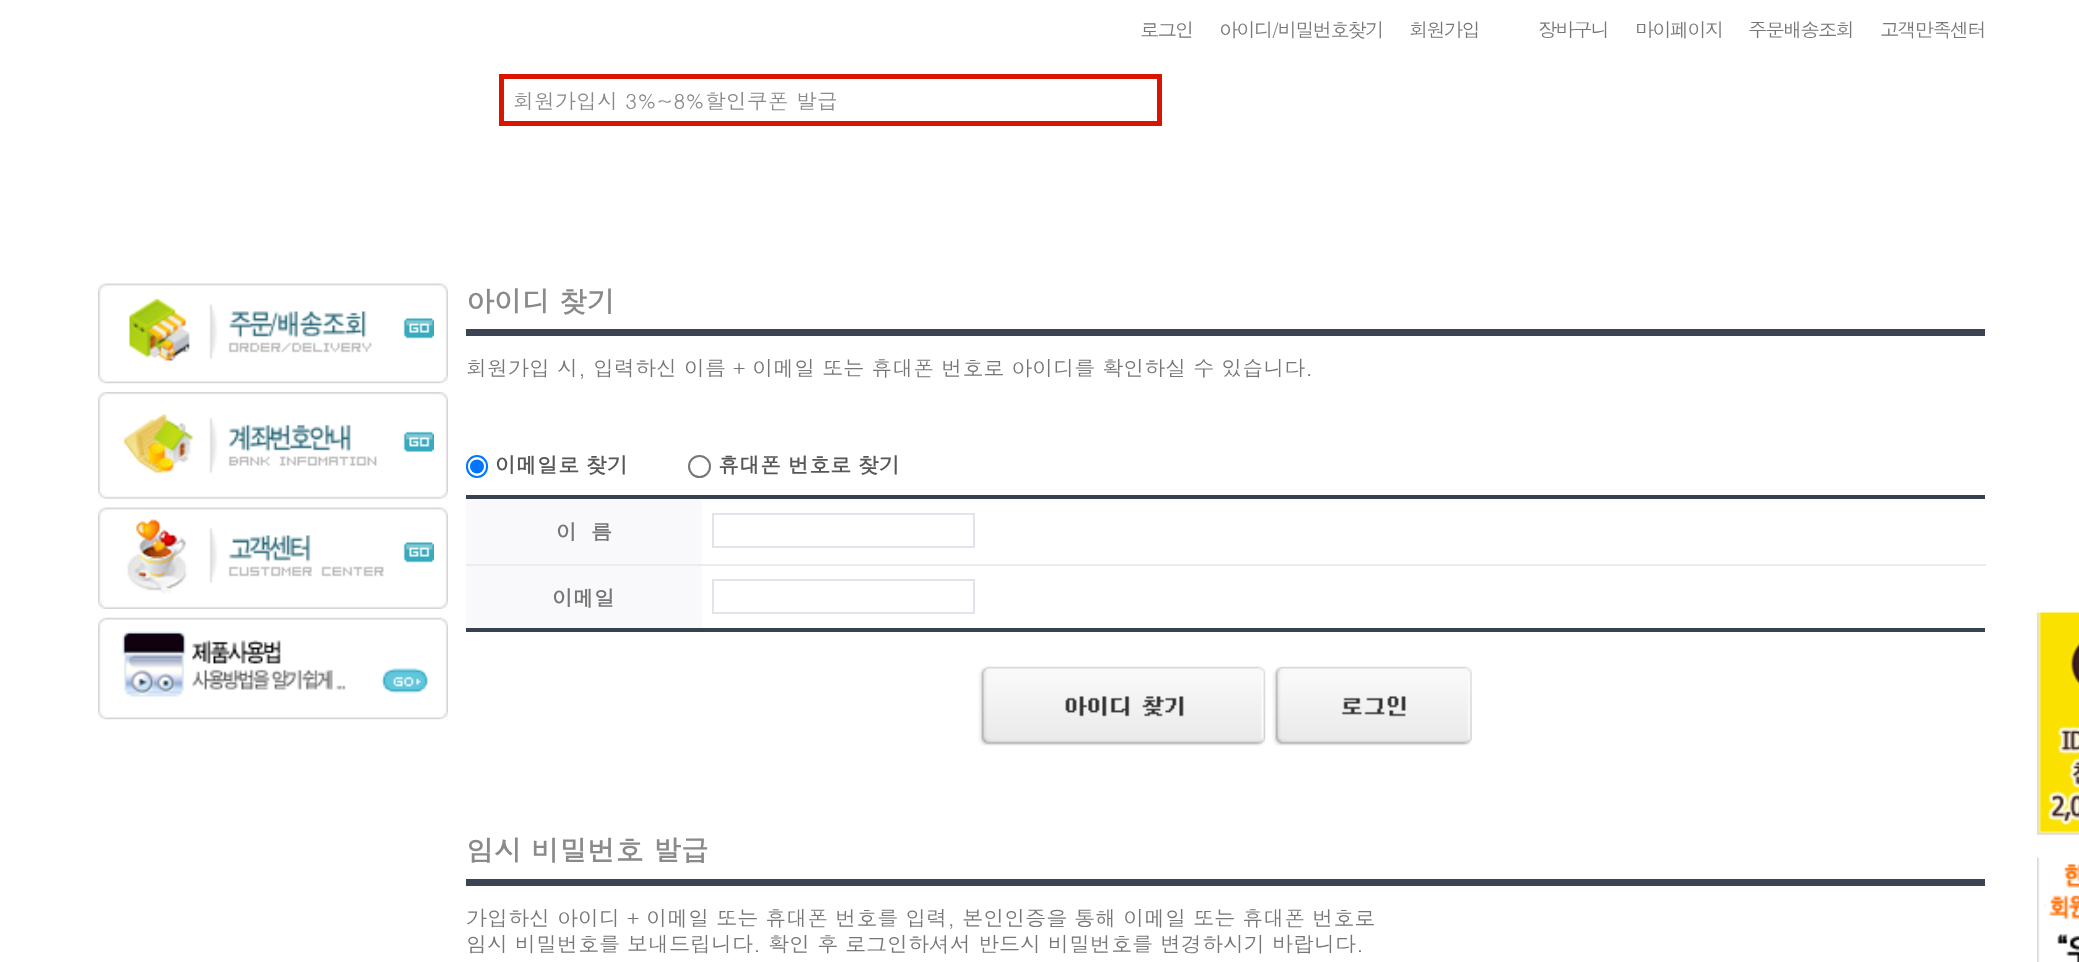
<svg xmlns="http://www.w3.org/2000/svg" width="2079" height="962">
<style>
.a{font:19.25px Dotum;letter-spacing:-1.75px;fill:#767676}
.b{font:21px Dotum;fill:#8a8a8a}
.c{font:bold 28px Dotum;fill:#8a8a8a}
.d{font:21px Dotum;fill:#767676}
.e{font:bold 21px Dotum;fill:#575757}
.f{font:bold 21px Dotum;fill:#767676}
</style>
<rect width="100%" height="100%" fill="#fff"/>
<path fill="none" stroke="#d91400" stroke-width="5" d="M501.5 76.5h658v47H501.5z"/>
<image href="1.png" x="98" y="283" width="350" height="101"/>
<image href="2.png" x="98" y="283" width="350" height="8"/>
<image href="3.png" x="129" y="298" width="305" height="63"/>
<image href="4.png" x="98" y="376" width="350" height="8"/>
<image href="5.png" x="98" y="400" width="350" height="99"/>
<image href="6.png" x="98" y="392" width="350" height="8"/>
<image href="7.png" x="123" y="414" width="311" height="59"/>
<image href="8.png" x="98" y="491" width="350" height="8"/>
<image href="9.png" x="98" y="507" width="350" height="94"/>
<image href="2.png" x="98" y="507" width="350" height="8"/>
<image href="10.png" x="127" y="519" width="307" height="75"/>
<image href="11.png" x="98" y="601" width="350" height="8"/>
<image href="12.png" x="98" y="617" width="350" height="103"/>
<image href="13.png" x="98" y="617" width="350" height="9"/>
<image href="14.png" x="122" y="631" width="307" height="66"/>
<image href="4.png" x="98" y="712" width="350" height="8"/>
<path fill="#3b4453" d="M466 329h1519v7H466z"/>
<rect fill="none" stroke="#0075ff" stroke-width="2" x="467" y="456" width="20" height="21" rx="10"/>
<circle fill="#0075ff" cx="477" cy="466.5" r="7"/>
<circle fill="none" stroke="#767676" stroke-width="2" cx="699.5" cy="466.5" r="10.5"/>
<path fill="#384150" d="M466 495h1519v4H466z"/>
<path fill="#384150" d="M466 628h1519v4H466z"/>
<path fill="#ececee" d="M466 564h1520v2H466z"/>
<path fill="none" stroke="#e3e3eb" stroke-width="2" d="M713 514h261v33H713z"/>
<path fill="#f9f9fb" d="M466 499h236v65H466z"/>
<path fill="#f9f9fb" d="M466 566h236v62H466z"/>
<path fill="none" stroke="#e3e3eb" stroke-width="2" d="M713 580h261v33H713z"/>
<image href="15.png" x="978" y="666" width="288" height="80"/>
<image href="16.png" x="1272" y="666" width="200" height="80"/>
<path fill="#3b4453" d="M466 879h1519v7H466z"/>
<image href="17.png" x="2037" y="612" width="42" height="223"/>
<image href="18.png" x="2037" y="857" width="42" height="105"/>
<text class="a" x="1140" y="37">로그인</text>
<text class="a" x="1219" y="37">아이디/비밀번호찾기</text>
<text class="a" x="1409" y="37">회원가입</text>
<text class="a" x="1538" y="37">장바구니</text>
<text class="a" x="1635" y="37">마이페이지</text>
<text class="a" x="1748" y="37">주문배송조회</text>
<text class="a" x="1880" y="37">고객만족센터</text>
<text class="b" x="513" y="109">회원가입시 3%~8%할인쿠폰 발급</text>
<text class="c" x="466" y="312">아이디 찾기</text>
<text class="d" x="466" y="376">회원가입 시, 입력하신 이름 + 이메일 또는 휴대폰 번호로 아이디를 확인하실 수 있습니다.</text>
<text class="e" x="495" y="473">이메일로 찾기</text>
<text class="e" x="718" y="473">휴대폰 번호로 찾기</text>
<text class="f" xml:space="preserve" x="556" y="540">이  름</text>
<text class="f" x="552" y="606">이메일</text>
<text class="c" x="466" y="861">임시 비밀번호 발급</text>
<text class="d" x="466" y="926">가입하신 아이디 + 이메일 또는 휴대폰 번호를 입력, 본인인증을 통해 이메일 또는 휴대폰 번호로</text>
<text class="d" x="466" y="952">임시 비밀번호를 보내드립니다. 확인 후 로그인하셔서 반드시 비밀번호를 변경하시기 바랍니다.</text>
</svg>
